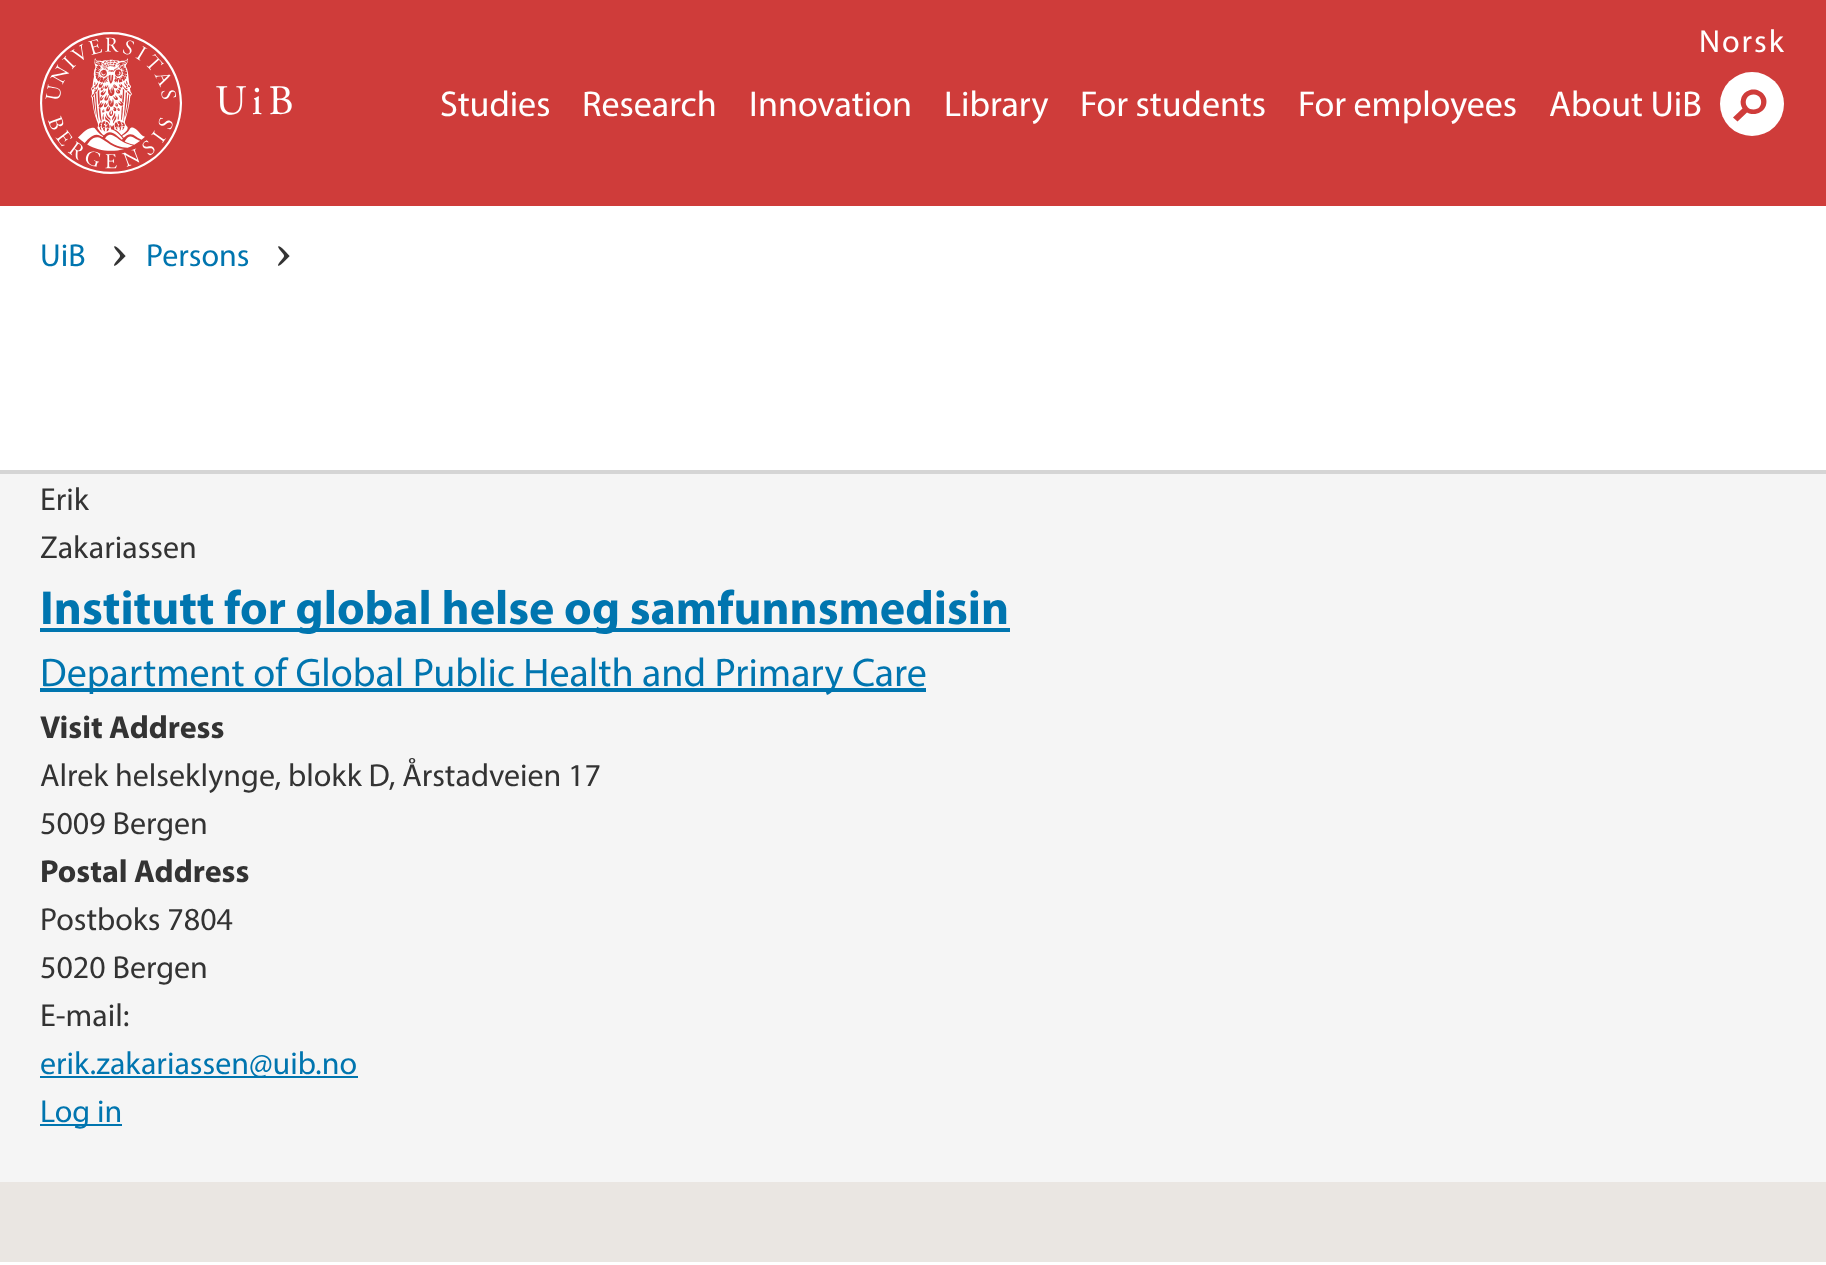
<svg xmlns="http://www.w3.org/2000/svg" width="1826" height="1265">
<style>
.a{font:42px Adobe Garamond;letter-spacing:6px;fill:#fff}
.b{font:32px Myriad;letter-spacing:2px;fill:#fff}
.c{font:36px Myriad;fill:#fff}
.d{font:32px Myriad;fill:#0075af}
.e{font:32px Myriad;fill:#333}
.f{font:bold 48px Myriad;fill:#0075af}
.g{font:40px Myriad;fill:#0075af}
.h{font:bold 32px Myriad;fill:#333}
</style>
<rect width="100%" height="100%" fill="#fff"/>
<path fill="#cf3c3a" d="M0 0h1826v206H0z"/>
<image href="1.png" x="40" y="32" width="142" height="142"/>
<circle fill="#fff" cx="1752" cy="104" r="32"/>
<path fill="#cf3c3a" fill-rule="evenodd" d="M1747 112.5c6.5 3.5 15.5 1 18.5-6c5-11.5-9-21.5-19-15c-3 2-5 4.5-5.5 8c-1 3 0 6.5 1.5 9l-9.5 9l4.5 4zm6.5-3c-10 0-10.5-14.5 0-15c9.5-.5 11 15 0 15z"/>
<image href="2.png" x="114" y="246" width="12" height="20"/>
<image href="2.png" x="278" y="246" width="12" height="20"/>
<path fill="#f5f5f5" d="M0 474h1826v708H0z"/>
<path fill="#d5d5d5" d="M0 470h1826v4H0z"/>
<path fill="#0075af" d="M40 628h970v4H40z"/>
<path fill="#0075af" d="M40 688h886v4H40z"/>
<path fill="#0075af" d="M40 1076h318v2H40z"/>
<path fill="#0075af" d="M40 1124h82v2H40z"/>
<path fill="#eae6e2" d="M0 1182h1826v80H0z"/>
<text class="a" x="215" y="114">UiB</text>
<text class="b" x="1699" y="52">Norsk</text>
<text class="c" x="440" y="116">Studies</text>
<text class="c" x="582" y="116">Research</text>
<text class="c" x="749" y="116">Innovation</text>
<text class="c" x="944" y="116">Library</text>
<text class="c" x="1080" y="116">For students</text>
<text class="c" x="1298" y="116">For employees</text>
<text class="c" x="1549" y="116">About UiB</text>
<text class="d" x="40" y="266">UiB</text>
<text class="d" x="146" y="266">Persons</text>
<text class="e" x="40" y="510">Erik</text>
<text class="e" x="40" y="558">Zakariassen</text>
<text class="f" x="40" y="624">Institutt for global helse og samfunnsmedisin</text>
<text class="g" x="40" y="686">Department of Global Public Health and Primary Care</text>
<text class="h" x="40" y="738">Visit Address</text>
<text class="e" x="40" y="786">Alrek helseklynge, blokk D, Årstadveien 17</text>
<text class="e" x="40" y="834">5009 Bergen</text>
<text class="h" x="40" y="882">Postal Address</text>
<text class="e" x="40" y="930">Postboks 7804</text>
<text class="e" x="40" y="978">5020 Bergen</text>
<text class="e" x="40" y="1026">E-mail:</text>
<text class="d" x="40" y="1074">erik.zakariassen@uib.no</text>
<text class="d" x="40" y="1122">Log in</text>
</svg>
